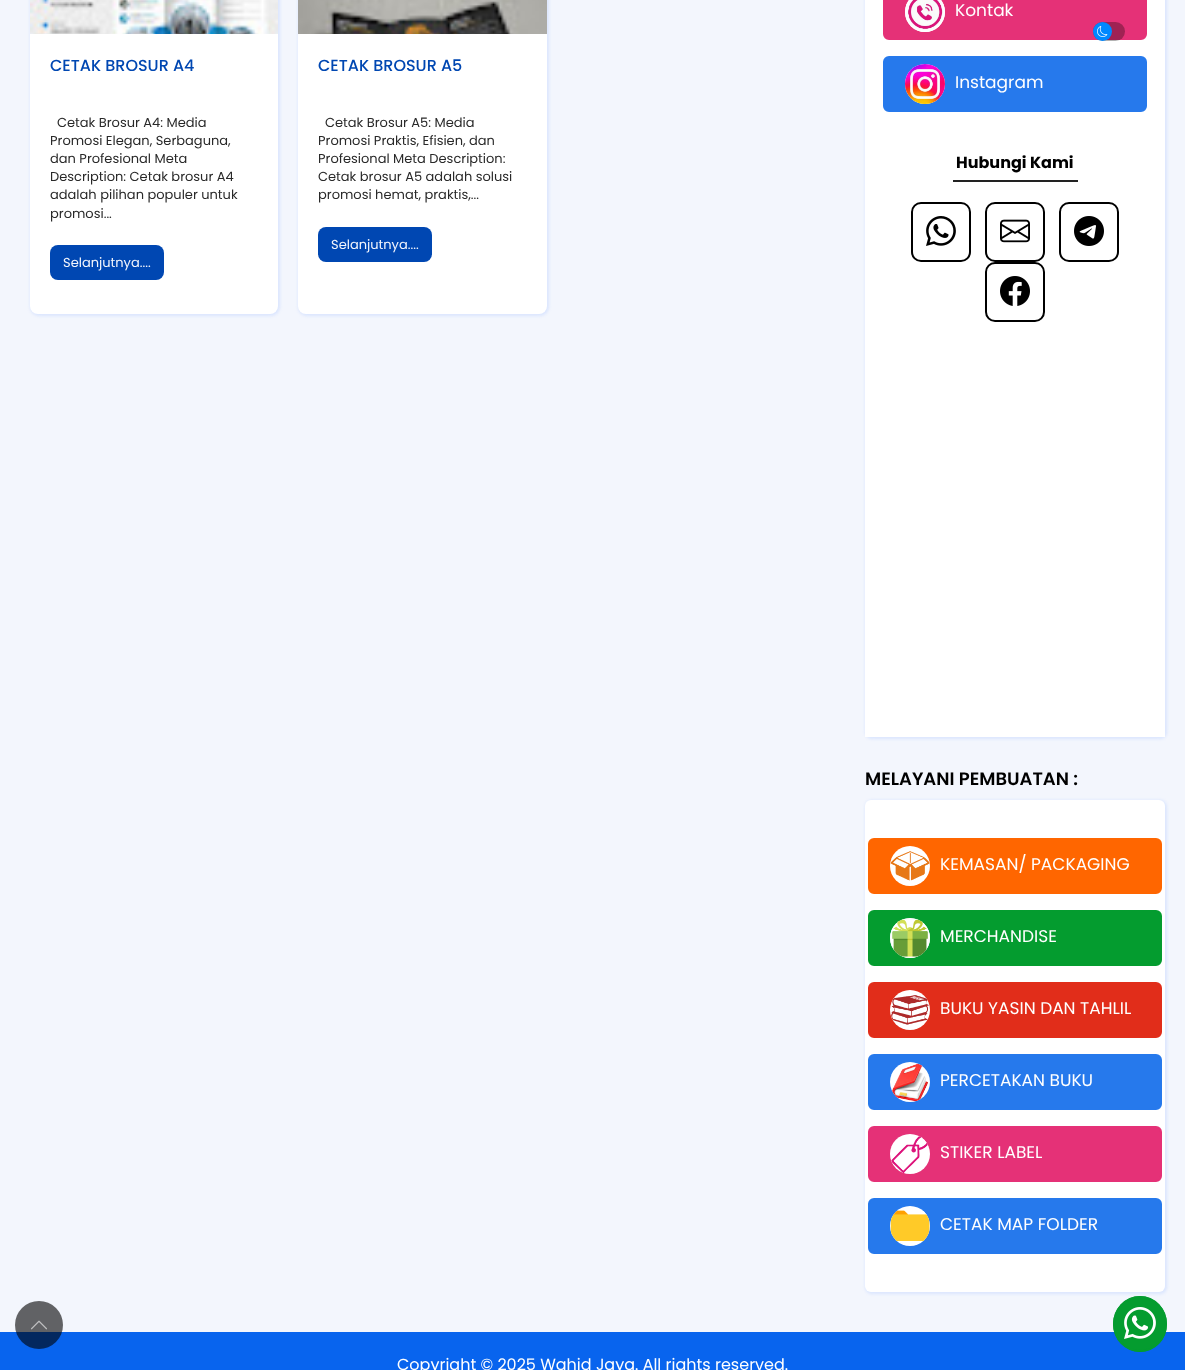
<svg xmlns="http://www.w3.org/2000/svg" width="1185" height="1370">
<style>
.a{font:500 16px Poppins;fill:#0047b2}
.b{font:13px Poppins;fill:#292929}
.c{font:13px Poppins;fill:#f3f6fd}
.d{font:17px Poppins;fill:#fff}
.e{font:bold 16px Poppins;fill:#000}
.f{font:600 18px Poppins;fill:#000}
.g{font:16px Poppins;fill:#fff}
</style>
<rect width="100%" height="100%" fill="#f3f6fd"/>
<rect fill="#dae5fe" filter="blur(1.5px)" x="30" y="-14" width="250" height="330" rx="9"/>
<rect fill="#fff" x="30" y="-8" width="248" height="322" rx="8"/>
<image href="1.png" x="30" y="0" width="248" height="34"/>
<rect fill="#0047b2" x="50" y="245" width="114" height="35" rx="8"/>
<rect fill="#dae5fe" filter="blur(1.5px)" x="298" y="-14" width="251" height="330" rx="9"/>
<rect fill="#fff" x="298" y="-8" width="249" height="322" rx="8"/>
<image href="2.png" x="298" y="0" width="249" height="34"/>
<rect fill="#0047b2" x="318" y="227" width="114" height="35" rx="8"/>
<rect fill="#dae5fe" filter="blur(1.5px)" x="865" y="-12" width="302" height="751" rx="7"/>
<path fill="#fff" d="M865 0h300v737H865z"/>
<rect fill="#e53177" stroke="#e53177" stroke-width="2" x="884" y="-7" width="262" height="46" rx="5"/>
<circle fill="#fff" cx="925" cy="12" r="20"/>
<image href="3.png" x="905" y="0" width="40" height="32"/>
<rect fill="#2679ec" stroke="#2679ec" stroke-width="2" x="884" y="57" width="262" height="54" rx="5"/>
<circle fill="#fff" cx="925" cy="84" r="20"/>
<image href="4.png" x="905" y="64" width="40" height="40"/>
<path fill="#222" d="M953 180h125v2H953z"/>
<rect fill="none" stroke="#000" stroke-width="2" x="912" y="203" width="58" height="58" rx="9"/>
<image href="5.png" x="926" y="216" width="30" height="30"/>
<rect fill="none" stroke="#000" stroke-width="2" x="986" y="203" width="58" height="58" rx="9"/>
<image href="6.png" x="1000" y="219" width="30" height="24"/>
<rect fill="none" stroke="#000" stroke-width="2" x="1060" y="203" width="58" height="58" rx="9"/>
<image href="7.png" x="1074" y="216" width="30" height="30"/>
<rect fill="none" stroke="#000" stroke-width="2" x="986" y="263" width="58" height="58" rx="9"/>
<image href="8.png" x="1000" y="276" width="30" height="30"/>
<rect fill="#dae5fe" filter="blur(1.5px)" x="865" y="800" width="302" height="494" rx="7"/>
<rect fill="#fff" x="865" y="800" width="300" height="492" rx="6"/>
<rect fill="#f60" stroke="#f60" stroke-width="2" x="869" y="839" width="292" height="54" rx="5"/>
<circle fill="#fff" cx="910" cy="866" r="20"/>
<image href="9.png" x="890" y="851" width="40" height="30"/>
<rect fill="#049c2f" stroke="#049c2f" stroke-width="2" x="869" y="911" width="292" height="54" rx="5"/>
<circle fill="#fff" cx="910" cy="938" r="20"/>
<image href="10.png" x="890" y="918" width="40" height="40"/>
<rect fill="#e12d1a" stroke="#e12d1a" stroke-width="2" x="869" y="983" width="292" height="54" rx="5"/>
<circle fill="#fff" cx="910" cy="1010" r="20"/>
<image href="11.png" x="891" y="995" width="38" height="30"/>
<rect fill="#2679ec" stroke="#2679ec" stroke-width="2" x="869" y="1055" width="292" height="54" rx="5"/>
<circle fill="#fff" cx="910" cy="1082" r="20"/>
<image href="12.png" x="892" y="1063" width="36" height="39"/>
<rect fill="#e53177" stroke="#e53177" stroke-width="2" x="869" y="1127" width="292" height="54" rx="5"/>
<circle fill="#fff" cx="910" cy="1154" r="20"/>
<image href="13.png" x="891" y="1136" width="37" height="37"/>
<rect fill="#2679ec" stroke="#2679ec" stroke-width="2" x="869" y="1199" width="292" height="54" rx="5"/>
<circle fill="#fff" cx="910" cy="1226" r="20"/>
<image href="14.png" x="890" y="1210" width="40" height="32"/>
<path fill="#0864ee" d="M0 1332h1185v38H0z"/>
<ellipse fill="#049c2f" cx="1140" cy="1324" rx="27" ry="28"/>
<path fill="none" stroke="#049c2f" stroke-width="2" d="M1140 1297c14.5 0 26 12 26 27c0 15-11.5 27-26 27c-14.5 0-26-12-26-27c0-15 11.5-27 26-27z"/>
<image href="15.png" x="1124" y="1307" width="32" height="32"/>
<rect fill="#0000004d" x="1093" y="22" width="32" height="19" rx="9.5"/>
<circle fill="#08f" cx="1102.5" cy="31.5" r="9.5"/>
<image href="16.png" x="1097" y="26" width="11" height="11"/>
<circle fill="#00000099" cx="39" cy="1325" r="24"/>
<image href="17.png" x="31" y="1320" width="16" height="10"/>
<text class="a" x="50" y="71">CETAK BROSUR A4</text>
<text class="b" x="57" y="127">Cetak Brosur A4: Media</text>
<text class="b" x="50" y="145">Promosi Elegan, Serbaguna,</text>
<text class="b" x="50" y="163">dan Profesional Meta</text>
<text class="b" x="50" y="181">Description: Cetak brosur A4</text>
<text class="b" x="50" y="199">adalah pilihan populer untuk</text>
<text class="b" x="50" y="218">promosi...</text>
<text class="c" x="63" y="267">Selanjutnya....</text>
<text class="a" x="318" y="71">CETAK BROSUR A5</text>
<text class="b" x="325" y="127">Cetak Brosur A5: Media</text>
<text class="b" x="318" y="145">Promosi Praktis, Efisien, dan</text>
<text class="b" x="318" y="163">Profesional Meta Description:</text>
<text class="b" x="318" y="181">Cetak brosur A5 adalah solusi</text>
<text class="b" x="318" y="199">promosi hemat, praktis,...</text>
<text class="c" x="331" y="249">Selanjutnya....</text>
<text class="d" x="955" y="16">Kontak</text>
<text class="d" x="955" y="88">Instagram</text>
<text class="e" x="956" y="168">Hubungi Kami</text>
<text class="f" x="865" y="785">MELAYANI PEMBUATAN :</text>
<text class="d" x="940" y="870">KEMASAN/ PACKAGING</text>
<text class="d" x="940" y="942">MERCHANDISE</text>
<text class="d" x="940" y="1014">BUKU YASIN DAN TAHLIL</text>
<text class="d" x="940" y="1086">PERCETAKAN BUKU</text>
<text class="d" x="940" y="1158">STIKER LABEL</text>
<text class="d" x="940" y="1230">CETAK MAP FOLDER</text>
<text class="g" x="397" y="1370">Copyright © 2025 Wahid Jaya. All rights reserved.</text>
</svg>
